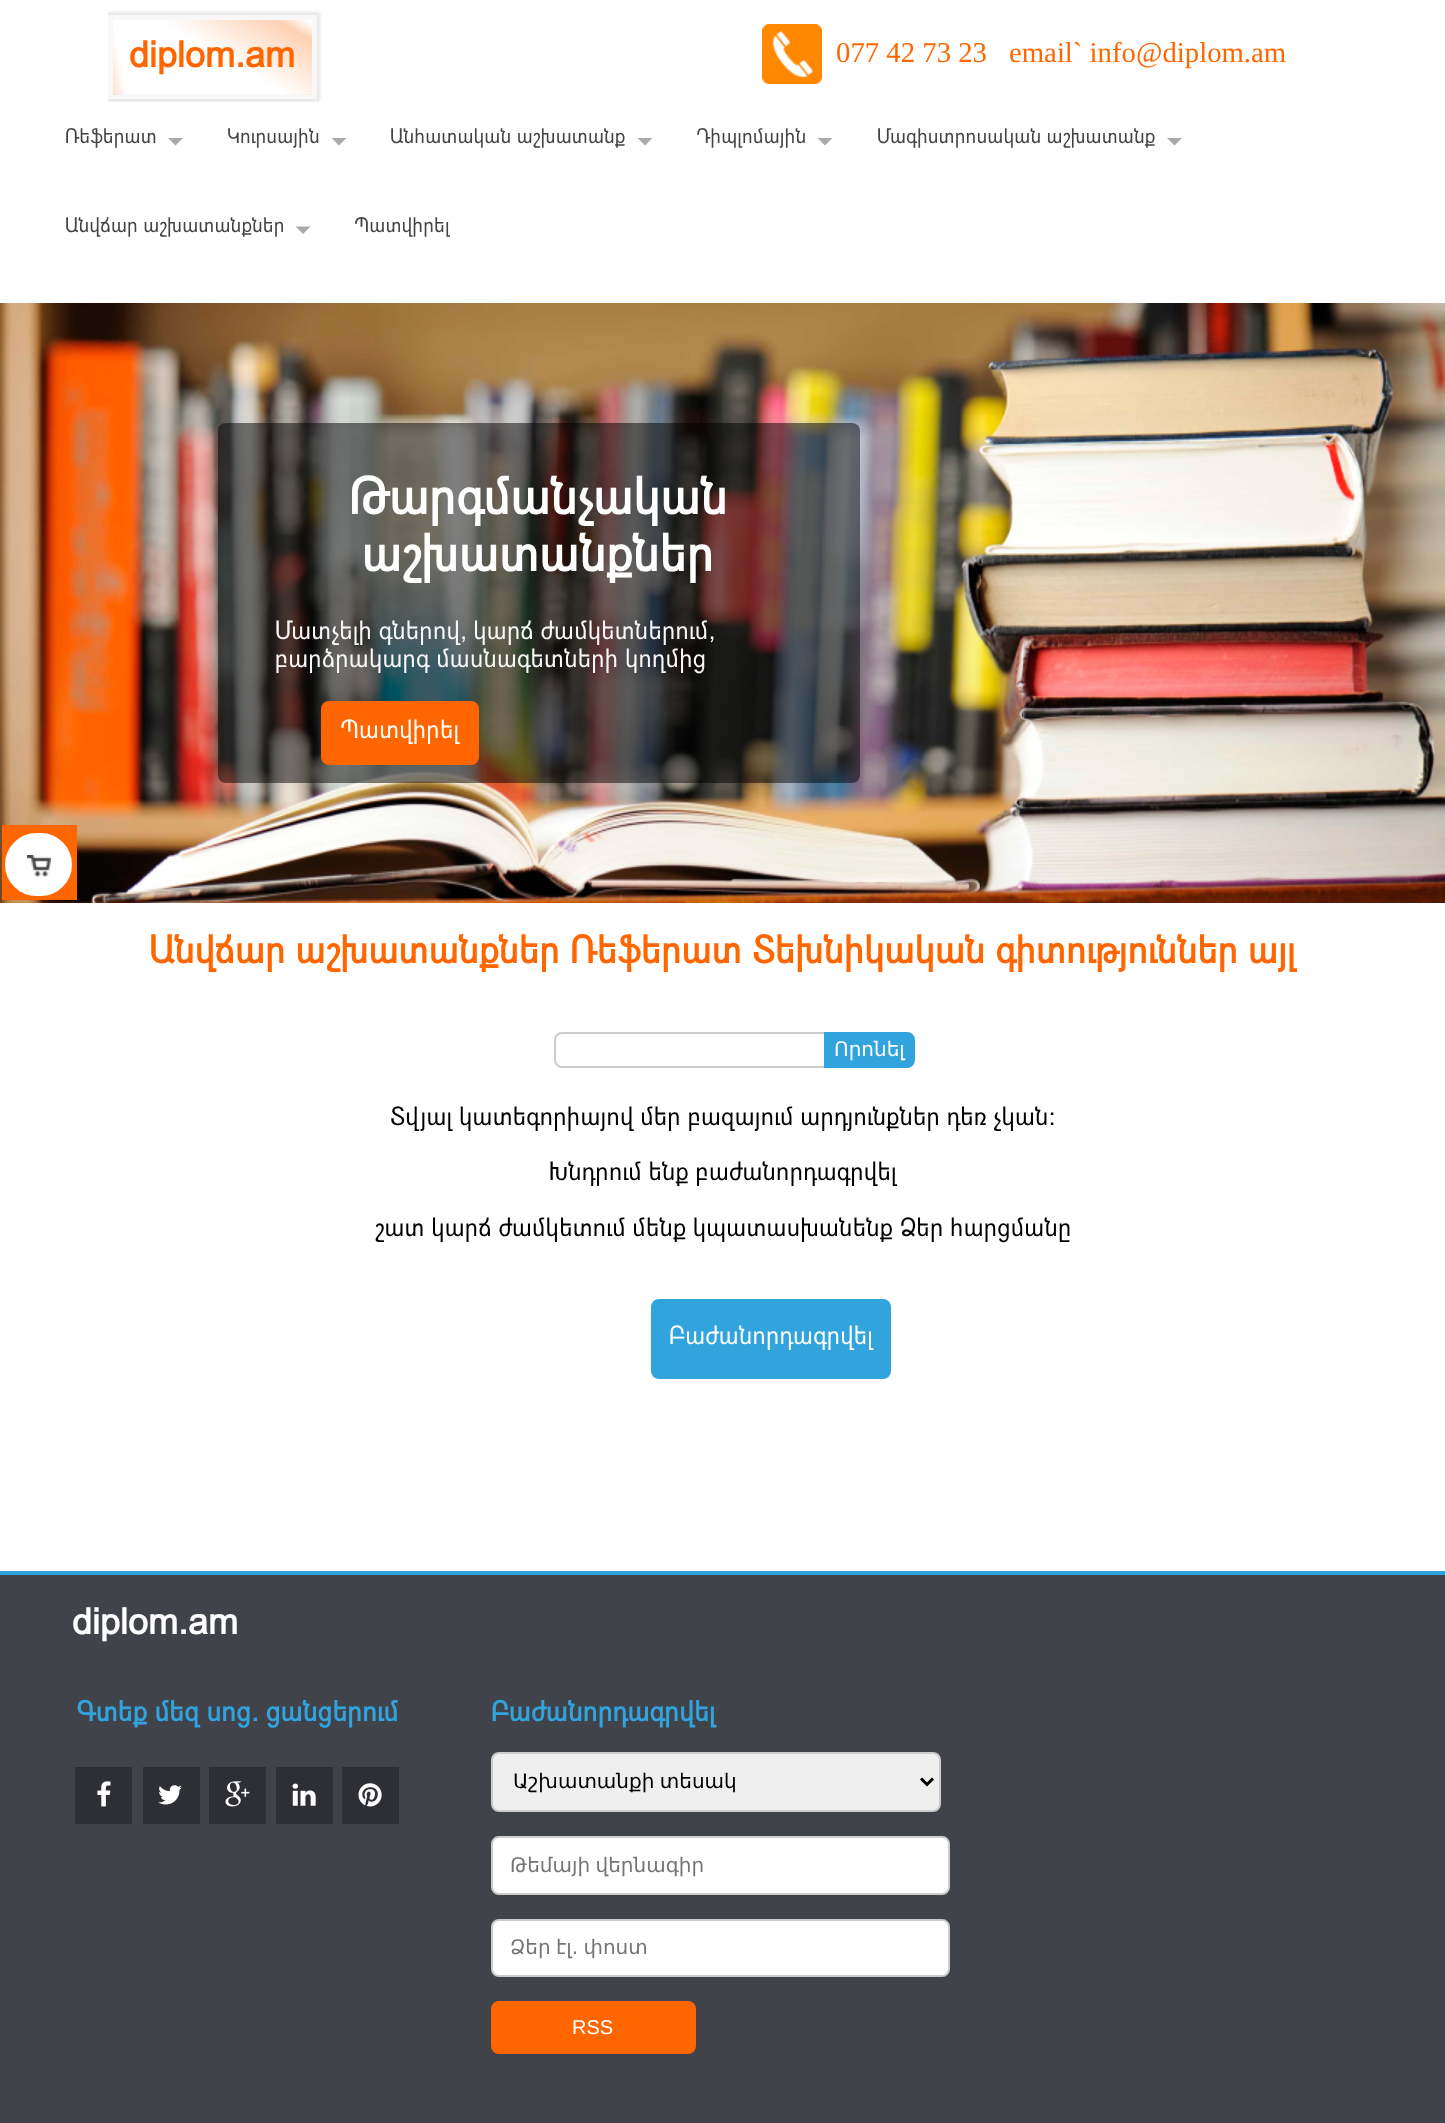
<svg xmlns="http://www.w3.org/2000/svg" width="1445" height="2123">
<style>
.a{font:bold 36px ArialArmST;fill:#f60}
.b{font:28.75px Liberation Serif;fill:#f60}
.c{font:19.25px ArialArmST;fill:#444}
.d{font:bold 48px ArialArmST;fill:#fff}
.e{font:24px ArialArmST;fill:#f8f8f8}
.f{font:24px ArialArmST;fill:#fff}
.g{font:20px DejaVu Sans;fill:#fff}
.h{font:24px ArialArmST;fill:#000}
.i{font:bold 36px ArialArmST;fill:#fff}
.j{font:bold 26.4px ArialArmST;fill:#31a3dd}
.k{font:20px DejaVu Sans;fill:#000}
.l{font:20px DejaVu Sans;fill:#757575}
.m{font:20px Liberation Sans;fill:#fff}
</style>
<defs>
<clipPath id="clip1"><path d="M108 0h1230v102H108z"/></clipPath>
<clipPath id="clip2"><path d="M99 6h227v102h-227zm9 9h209v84h-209z" clip-rule="evenodd"/></clipPath>
<linearGradient id="g1" gradientUnits="userSpaceOnUse" x1="272" y1="87" x2="655" y2="-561"><stop offset="0" stop-color="#f60" stop-opacity="0"/><stop offset="0.08" stop-color="#f60" stop-opacity="0.3"/><stop offset="0.08" stop-color="#f60" stop-opacity="0.3"/><stop offset="0.1" stop-color="#f60" stop-opacity="0"/><stop offset="1" stop-color="#f60" stop-opacity="0"/></linearGradient>
<linearGradient id="g2" gradientUnits="userSpaceOnUse" x1="-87" y1="57" x2="113" y2="20"><stop offset="0" stop-color="#f60" stop-opacity="0"/><stop offset="0.4" stop-color="#f60" stop-opacity="0"/><stop offset="0.9" stop-color="#f60" stop-opacity="0.3"/><stop offset="1" stop-color="#f60" stop-opacity="0"/></linearGradient>
</defs>
<rect width="100%" height="100%" fill="#fff"/>
<g clip-path="url(#clip1)">
<g clip-path="url(#clip2)">
<path fill="#1414141a" filter="blur(1.5px)" d="M105 12h215v90H105z"/>
</g>
</g>
<path fill="none" stroke="#f8f8f8" stroke-width="5" d="M110.5 17.5h204v79H110.5z"/>
<path fill="url(#g1)" d="M168 20h144v75H168z"/>
<path fill="url(#g2)" d="M113 31h12v64H113z"/>
<image href="1.png" x="762" y="24" width="60" height="60"/>
<path fill="#aaa" d="M168 138h15l-7.5 7.5z"/>
<path fill="#aaa" d="M331.5 138h15l-7.5 7.5z"/>
<path fill="#aaa" d="M637.5 138h15l-7.5 7.5z"/>
<path fill="#aaa" d="M817.5 138h15l-7.5 7.5z"/>
<path fill="#aaa" d="M1167 138h15l-7.5 7.5z"/>
<path fill="#aaa" d="M295.5 226.5h15l-7.5 7.5z"/>
<image href="2.png" x="0" y="303" width="1445" height="600"/>
<rect fill="#00000080" x="218" y="423" width="642" height="360" rx="8"/>
<rect fill="#f60" x="321" y="701" width="158" height="64" rx="8"/>
<path fill="#f60" d="M2 825h75v75H2z"/>
<rect fill="#fff" stroke="#fff" stroke-width="3" x="6.5" y="834.5" width="64" height="60" rx="30"/>
<image href="3.png" x="27" y="855" width="24" height="22"/>
<path fill="none" stroke="#ccc" stroke-width="2" d="M562 1033h265v34h-265c-4 0-7-3-7-7v-20c0-4 3-7 7-7z"/>
<path fill="#31a3dd" stroke="#31a3dd" stroke-width="2" d="M825 1033h82c4 0 7 3 7 7v20c0 4-3 7-7 7h-82z"/>
<rect fill="#31a3dd" x="651" y="1299" width="240" height="80" rx="8"/>
<path fill="#41434a" d="M0 1575h1445v548H0z"/>
<path fill="#31a3dd" d="M0 1571h1445v4H0z"/>
<path fill="#2e2f34" d="M75 1767h57v57H75z"/>
<image href="4.png" x="97" y="1781" width="14" height="26"/>
<path fill="#2e2f34" d="M143 1767h57v57H143z"/>
<image href="5.png" x="158" y="1785" width="24" height="20"/>
<path fill="#2e2f34" d="M209 1767h57v57H209z"/>
<image href="6.png" x="225" y="1781" width="25" height="26"/>
<path fill="#2e2f34" d="M276 1767h57v57H276z"/>
<image href="7.png" x="292" y="1783" width="24" height="23"/>
<path fill="#2e2f34" d="M342 1767h57v57H342z"/>
<image href="8.png" x="358" y="1783" width="24" height="24"/>
<rect fill="#efefef" stroke="#ccc" stroke-width="2" x="492" y="1753" width="448" height="58" rx="7"/>
<path fill="none" stroke="#000" stroke-width="3" d="M921 1778.5l6 6l6-6"/>
<rect fill="#fff" stroke="#ccc" stroke-width="2" x="492" y="1837" width="457" height="57" rx="7"/>
<rect fill="#fff" stroke="#ccc" stroke-width="2" x="492" y="1920" width="457" height="56" rx="7"/>
<rect fill="#f60" stroke="#f60" stroke-width="3" x="492.5" y="2002.5" width="202" height="50" rx="6.5"/>
<text class="a" x="129" y="67">diplom.am</text>
<text class="b" x="836" y="62">077 42 73 23</text>
<text class="b" x="1009" y="62">email` info@diplom.am</text>
<text class="c" x="65" y="143">Ռեֆերատ</text>
<text class="c" x="227" y="143">Կուրսային</text>
<text class="c" x="390" y="143">Անհատական աշխատանք</text>
<text class="c" x="696" y="143">Դիպլոմային</text>
<text class="c" x="877" y="143">Մագիստրոսական աշխատանք</text>
<text class="c" x="65" y="232">Անվճար աշխատանքներ</text>
<text class="c" x="354" y="232">Պատվիրել</text>
<text class="d" x="349" y="514">Թարգմանչական</text>
<text class="d" x="362" y="571">աշխատանքներ</text>
<text class="e" x="275" y="639">Մատչելի գներով, կարճ ժամկետներում,</text>
<text class="e" x="275" y="667">բարձրակարգ մասնագետների կողմից</text>
<text class="f" x="340" y="738">Պատվիրել</text>
<text class="a" x="149" y="963">Անվճար աշխատանքներ Ռեֆերատ Տեխնիկական գիտություններ այլ</text>
<text class="g" x="834" y="1056">Որոնել</text>
<text class="h" x="390" y="1125">Տվյալ կատեգորիայով մեր բազայում արդյունքներ դեռ չկան:</text>
<text class="h" x="549" y="1180">Խնդրում ենք բաժանորդագրվել</text>
<text class="h" x="375" y="1236">շատ կարճ ժամկետում մենք կպատասխանենք Ձեր հարցմանը</text>
<text class="f" x="669" y="1344">Բաժանորդագրվել</text>
<text class="i" x="72" y="1634">diplom.am</text>
<text class="j" x="76" y="1721">Գտեք մեզ սոց. ցանցերում</text>
<text class="j" x="491" y="1721">Բաժանորդագրվել</text>
<text class="k" x="513" y="1788" word-spacing="-1">Աշխատանքի տեսակ</text>
<text class="l" x="510" y="1872" word-spacing="-1">Թեմայի վերնագիր</text>
<text class="l" x="510" y="1954" word-spacing="-1">Ձեր էլ. փոստ</text>
<text class="m" x="572" y="2034">RSS</text>
</svg>
